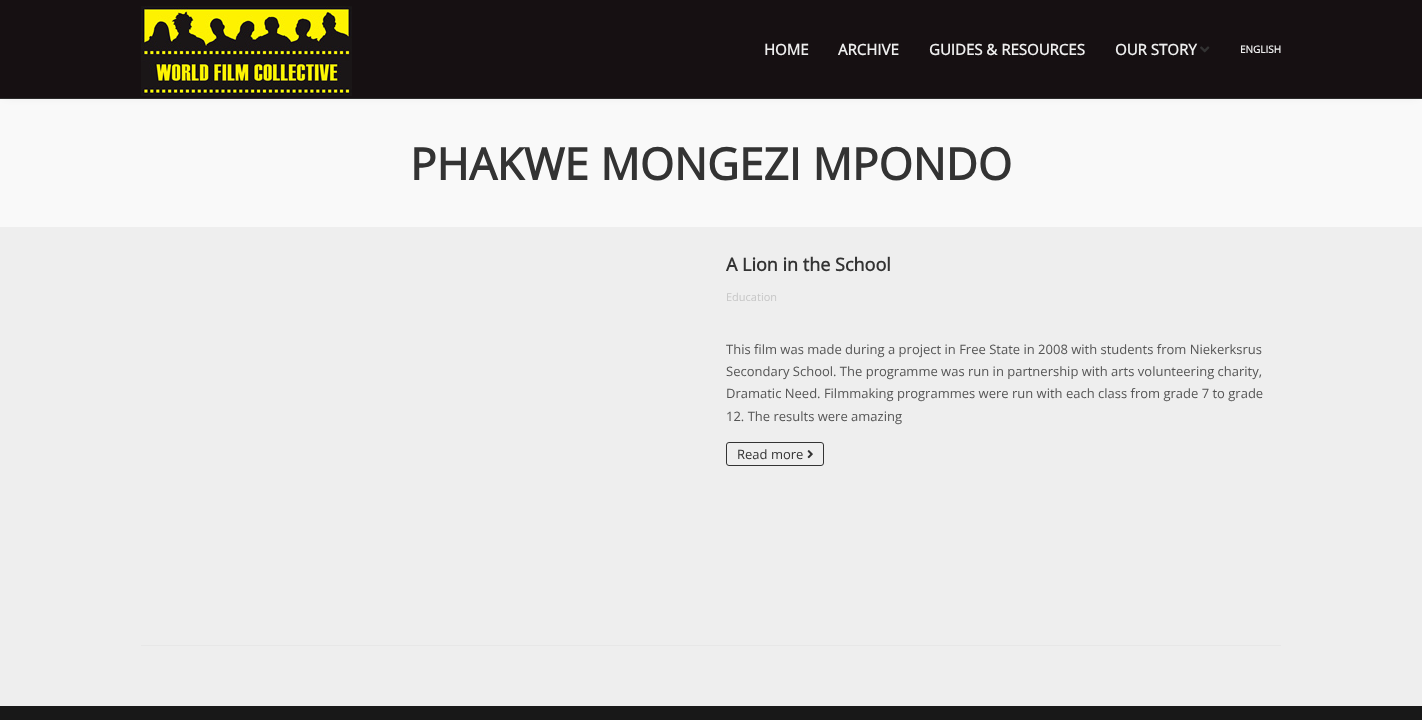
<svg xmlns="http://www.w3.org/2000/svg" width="1422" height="720">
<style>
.a{font:bold 15px Open Sans;fill:#eee}
.b{font:bold 10px Open Sans;fill:#eee}
.c{font:bold 44px Open Sans;fill:#333}
.d{font:bold 18px Open Sans;fill:#333}
.e{font:11px Open Sans;fill:#c6c6c6}
.f{font:13px Open Sans;fill:#555}
.g{font:13px Open Sans;fill:#333}
</style>
<rect width="100%" height="100%" fill="#eee"/>
<path fill="#f9f9f9" d="M0 99h1422v128H0z"/>
<path fill="#00000012" filter="blur(4.5px)" d="M4 6h1414v91H4z"/>
<path fill="#161012" d="M0 0h1422v98H0z"/>
<path fill="#2b2b2b" d="M0 98h1422v1H0z"/>
<image href="1.png" x="141" y="6" width="211" height="90"/>
<image href="2.png" x="1200" y="46" width="10" height="7"/>
<path fill="#e7e7e7" d="M141 645h1140v1H141z"/>
<rect fill="none" stroke="#333" x="726.5" y="442.5" width="97" height="23" rx="2.5"/>
<image href="3.png" x="807" y="450" width="6" height="9"/>
<path fill="#181818" d="M0 706h1422v14H0z"/>
<text class="a" x="764" y="55">HOME</text>
<text class="a" x="838" y="55">ARCHIVE</text>
<text class="a" x="929" y="55">GUIDES &amp; RESOURCES</text>
<text class="a" x="1115" y="55">OUR STORY</text>
<text class="b" x="1240" y="53">ENGLISH</text>
<text class="c" x="410" y="180">PHAKWE MONGEZI MPONDO</text>
<text class="d" x="726" y="271">A Lion in the School</text>
<text class="e" x="726" y="301">Education</text>
<text class="f" x="726" y="354">This film was made during a project in Free State in 2008 with students from Niekerksrus</text>
<text class="f" x="726" y="376">Secondary School. The programme was run in partnership with arts volunteering charity,</text>
<text class="f" x="726" y="398">Dramatic Need. Filmmaking programmes were run with each class from grade 7 to grade</text>
<text class="f" x="726" y="421">12. The results were amazing</text>
<text class="g" x="737" y="459">Read more</text>
</svg>
